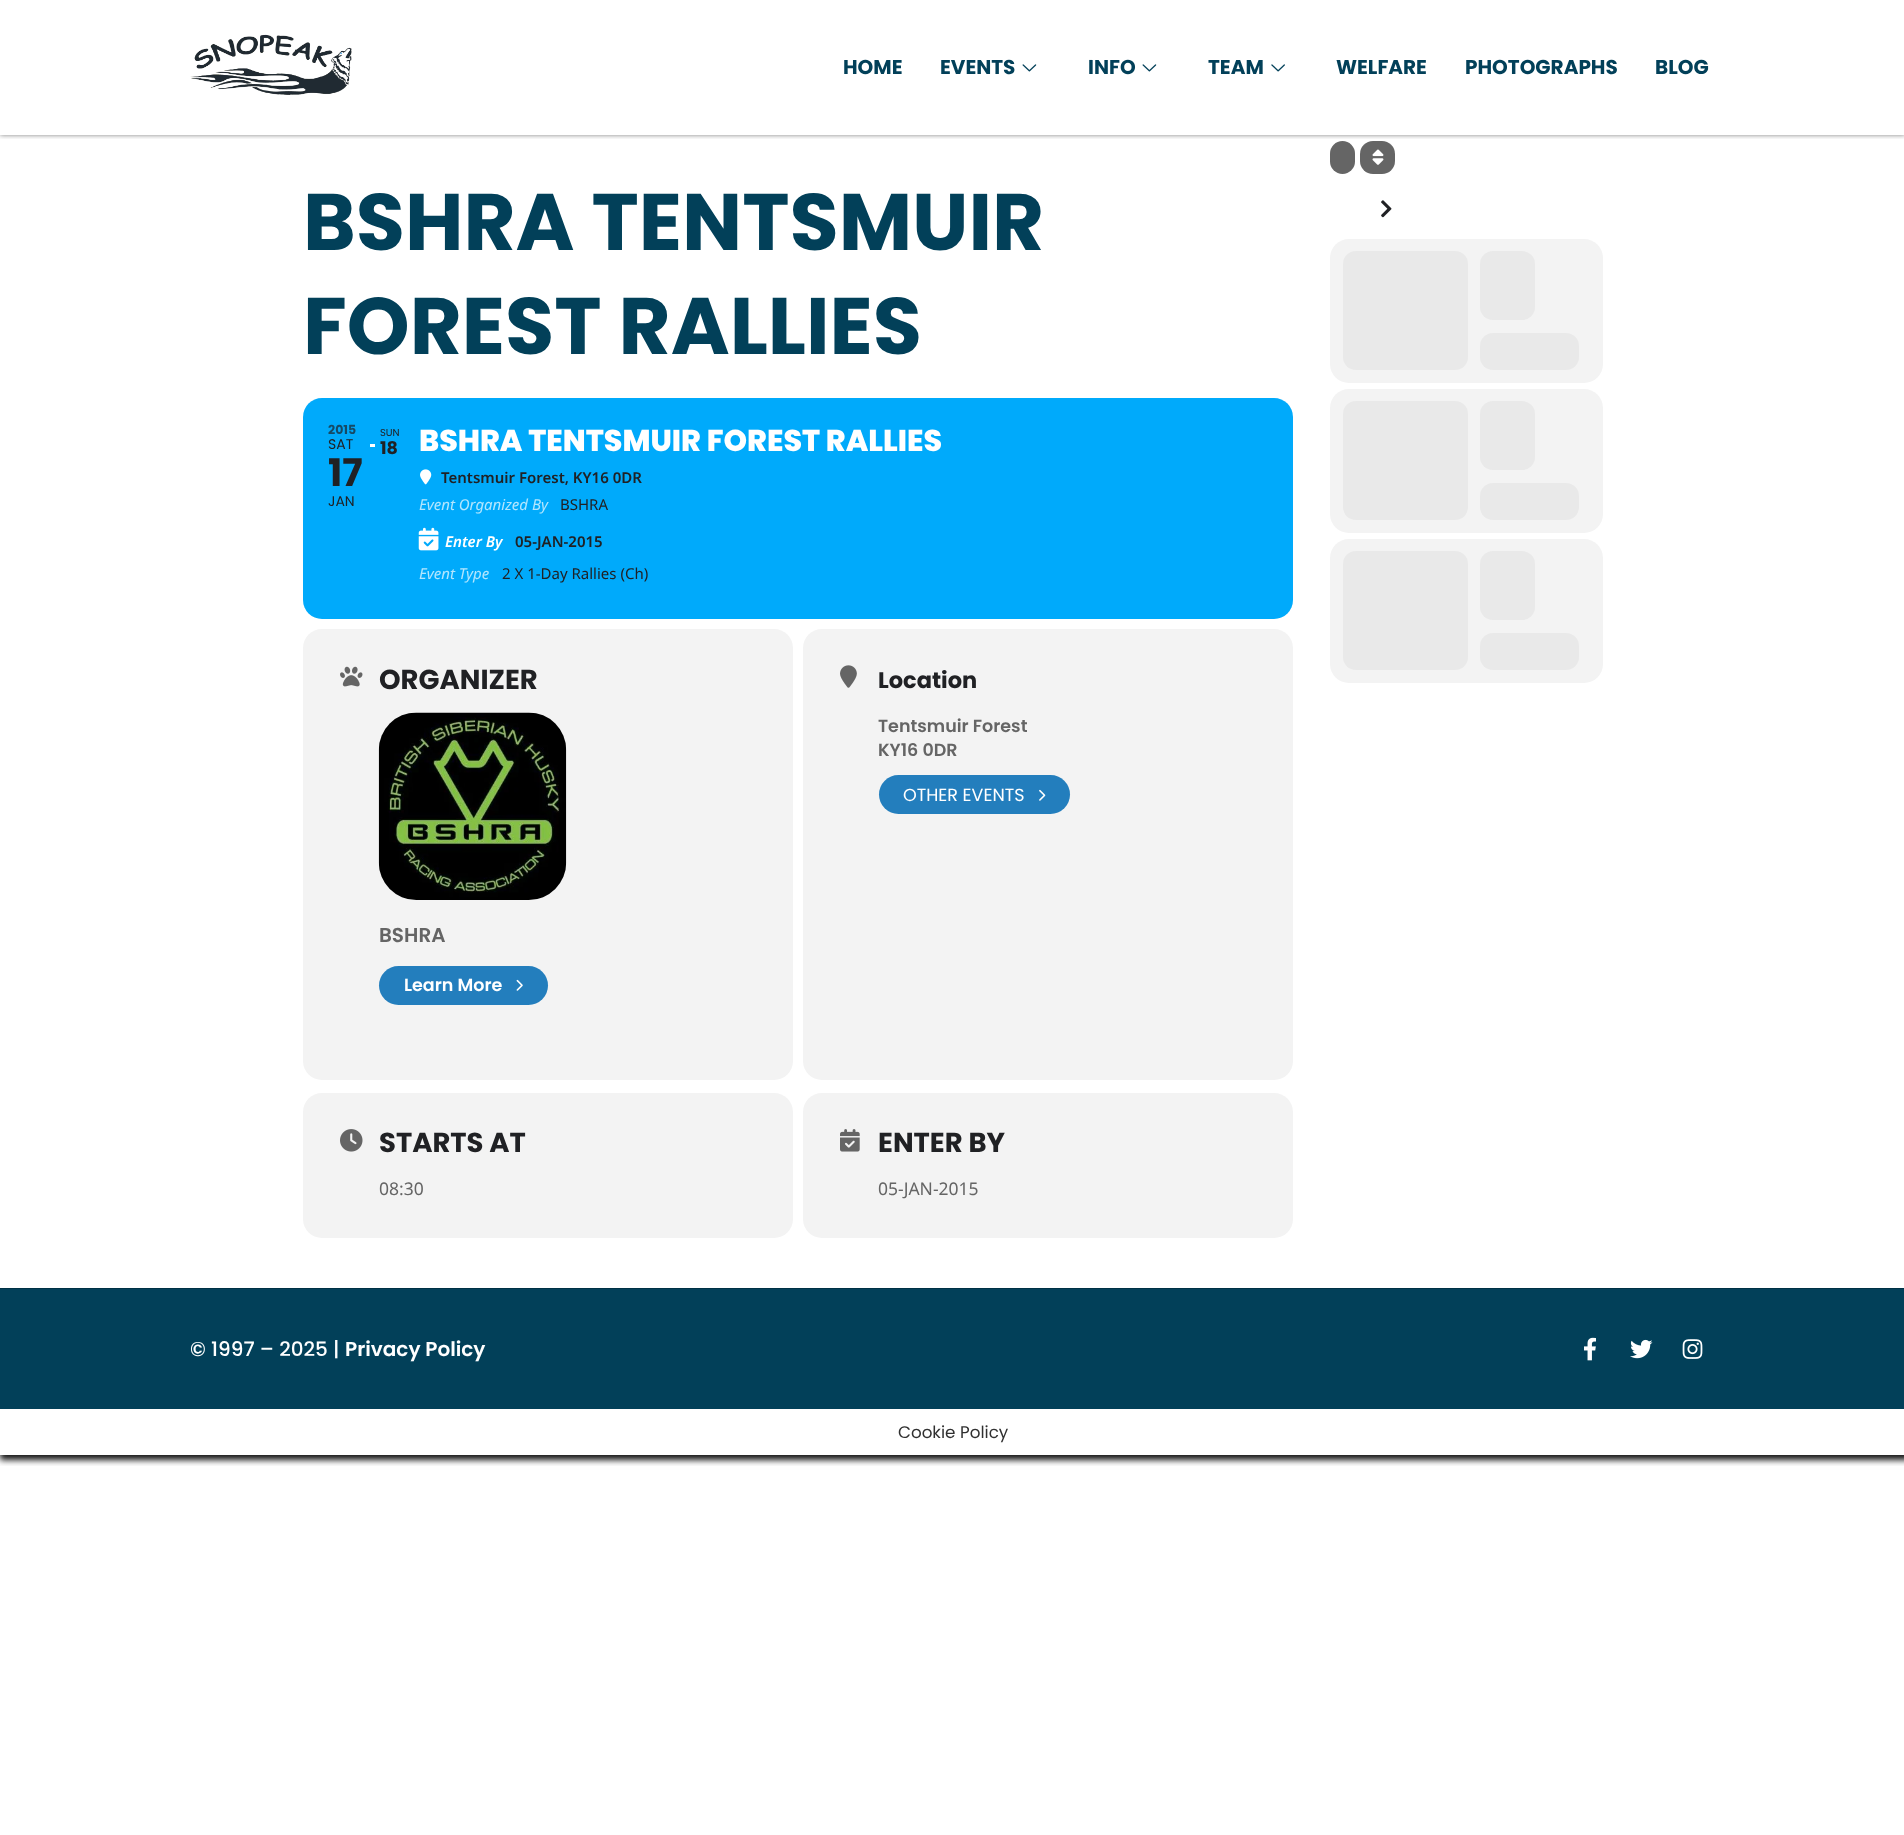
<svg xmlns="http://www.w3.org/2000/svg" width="1904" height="1835">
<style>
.a{font:bold 20px Poppins;fill:#024059}
.b{font:bold 80px Poppins;fill:#024059}
.c{font:bold 12.5px Poppins;fill:#164a65}
.d{font:14px Poppins;fill:#202124}
.e{font:bold 38px Poppins;fill:#202124}
.f{font:10px Poppins;fill:#202124}
.g{font:bold 17.5px Poppins;fill:#202124}
.h{font:800 30px Poppins;fill:#fff}
.i{font:600 15px Noto Sans;fill:#202124}
.j{font:italic 15px Noto Sans;fill:#b3e6fe}
.k{font:15px Noto Sans;fill:#202124}
.l{font:italic 600 15px Noto Sans;fill:#fff}
.m{font:bold 27.5px Poppins;fill:#202124}
.n{font:600 20px Poppins;fill:#656565}
.o{font:600 17.5px Poppins;fill:#fff}
.p{font:bold 22.5px Poppins;fill:#202124}
.q{font:600 17.5px Poppins;fill:#656565}
.r{font:17.5px Poppins;fill:#fff}
.s{font:17.5px Noto Sans;fill:#656565}
.t{font:500 20px Poppins;fill:#fff}
.u{font:600 20px Poppins;fill:#fff}
.v{font:16.75px Poppins;fill:#303030}
</style>
<defs>
<clipPath id="clip1"><path d="M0 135h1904v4H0z"/></clipPath>
<clipPath id="clip2"><path d="M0 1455h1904v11H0z"/></clipPath>
</defs>
<rect width="100%" height="100%" fill="#fff"/>
<rect fill="#656565" x="1330" y="141" width="25" height="33" rx="12.5"/>
<rect fill="#656565" x="1360" y="141" width="35" height="33" rx="13"/>
<g clip-path="url(#clip1)">
<path fill="#00000080" filter="blur(2.5px)" d="M0 0h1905v135H0z"/>
</g>
<image href="1.png" x="190" y="34" width="162" height="61"/>
<image href="2.png" x="1022" y="64" width="15" height="8"/>
<image href="2.png" x="1142" y="64" width="15" height="8"/>
<image href="3.png" x="1271" y="64" width="14" height="8"/>
<rect fill="#00aafb" x="303" y="398" width="990" height="221" rx="19"/>
<path fill="#fff" d="M370 444h5v3H370z"/>
<image href="4.png" x="420" y="469" width="12" height="16"/>
<image href="5.png" x="418" y="527" width="21" height="24"/>
<rect fill="#f3f3f3" x="303" y="629" width="490" height="451" rx="19"/>
<image href="6.png" x="340" y="666" width="23" height="21"/>
<image href="7.png" x="378" y="712" width="189" height="188"/>
<rect fill="#237ebd" x="379" y="966" width="169" height="39" rx="19.5"/>
<image href="8.png" x="516" y="979" width="7" height="12"/>
<rect fill="#f3f3f3" x="803" y="629" width="490" height="451" rx="19"/>
<image href="9.png" x="840" y="665" width="17" height="23"/>
<rect fill="#237ebd" x="879" y="775" width="191" height="39" rx="19.5"/>
<image href="10.png" x="1039" y="789" width="7" height="12"/>
<rect fill="#f3f3f3" x="303" y="1093" width="490" height="145" rx="19"/>
<image href="11.png" x="340" y="1129" width="23" height="23"/>
<rect fill="#f3f3f3" x="803" y="1093" width="490" height="145" rx="19"/>
<image href="12.png" x="840" y="1129" width="20" height="23"/>
<image href="13.png" x="1372" y="149" width="12" height="16"/>
<image href="14.png" x="1381" y="200" width="11" height="18"/>
<rect fill="#f3f3f3" x="1330" y="239" width="273" height="144" rx="19"/>
<rect fill="#e9e9e9" x="1343" y="251" width="125" height="119" rx="13"/>
<rect fill="#e9e9e9" x="1480" y="251" width="55" height="69" rx="13"/>
<rect fill="#e9e9e9" x="1480" y="333" width="99" height="37" rx="13"/>
<rect fill="#f3f3f3" x="1330" y="389" width="273" height="144" rx="19"/>
<rect fill="#e9e9e9" x="1343" y="401" width="125" height="119" rx="13"/>
<rect fill="#e9e9e9" x="1480" y="401" width="55" height="69" rx="13"/>
<rect fill="#e9e9e9" x="1480" y="483" width="99" height="37" rx="13"/>
<rect fill="#f3f3f3" x="1330" y="539" width="273" height="144" rx="19"/>
<rect fill="#e9e9e9" x="1343" y="551" width="125" height="119" rx="13"/>
<rect fill="#e9e9e9" x="1480" y="551" width="55" height="69" rx="13"/>
<rect fill="#e9e9e9" x="1480" y="633" width="99" height="37" rx="13"/>
<g clip-path="url(#clip2)">
<path fill="#161616" filter="blur(3px)" d="M0 1409h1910v51H0z"/>
</g>
<path fill="#024059" d="M0 1289h1904v120H0z"/>
<path fill="#003145" d="M0 1288h1904v1H0z"/>
<image href="15.png" x="1584" y="1337" width="12" height="24"/>
<image href="16.png" x="1630" y="1339" width="23" height="20"/>
<image href="17.png" x="1682" y="1339" width="21" height="20"/>
<text class="a" x="843" y="74">HOME</text>
<text class="a" x="940" y="74">EVENTS</text>
<text class="a" x="1088" y="74">INFO</text>
<text class="a" x="1208" y="74">TEAM</text>
<text class="a" x="1336" y="74">WELFARE</text>
<text class="a" x="1465" y="74">PHOTOGRAPHS</text>
<text class="a" x="1655" y="74">BLOG</text>
<text class="b" x="303" y="250">BSHRA TENTSMUIR</text>
<text class="b" x="303" y="354">FOREST RALLIES</text>
<text class="c" x="328" y="434">2015</text>
<text class="d" x="328" y="449">SAT</text>
<text class="e" x="328" y="486">17</text>
<text class="d" x="328" y="506">JAN</text>
<text class="f" x="380" y="436">SUN</text>
<text class="g" x="380" y="454">18</text>
<text class="h" x="419" y="451">BSHRA TENTSMUIR FOREST RALLIES</text>
<text class="i" x="441" y="483">Tentsmuir Forest, KY16 0DR</text>
<text class="j" x="419" y="510">Event Organized By</text>
<text class="k" x="560" y="510">BSHRA</text>
<text class="l" x="445" y="547">Enter By</text>
<text class="i" x="515" y="547">05-JAN-2015</text>
<text class="j" x="419" y="579">Event Type</text>
<text class="k" x="502" y="579">2 X 1-Day Rallies (Ch)</text>
<text class="m" x="379" y="689">ORGANIZER</text>
<text class="n" x="379" y="942">BSHRA</text>
<text class="o" x="404" y="991">Learn More</text>
<text class="p" x="878" y="688">Location</text>
<text class="q" x="878" y="732">Tentsmuir Forest</text>
<text class="q" x="878" y="756">KY16 0DR</text>
<text class="r" x="903" y="801">OTHER EVENTS</text>
<text class="m" x="379" y="1152">STARTS AT</text>
<text class="s" x="379" y="1195">08:30</text>
<text class="m" x="878" y="1152">ENTER BY</text>
<text class="s" x="878" y="1195">05-JAN-2015</text>
<text class="t" x="190" y="1356">© 1997 – 2025 |</text>
<text class="u" x="345" y="1356">Privacy Policy</text>
<text class="v" x="898" y="1438">Cookie Policy</text>
</svg>
